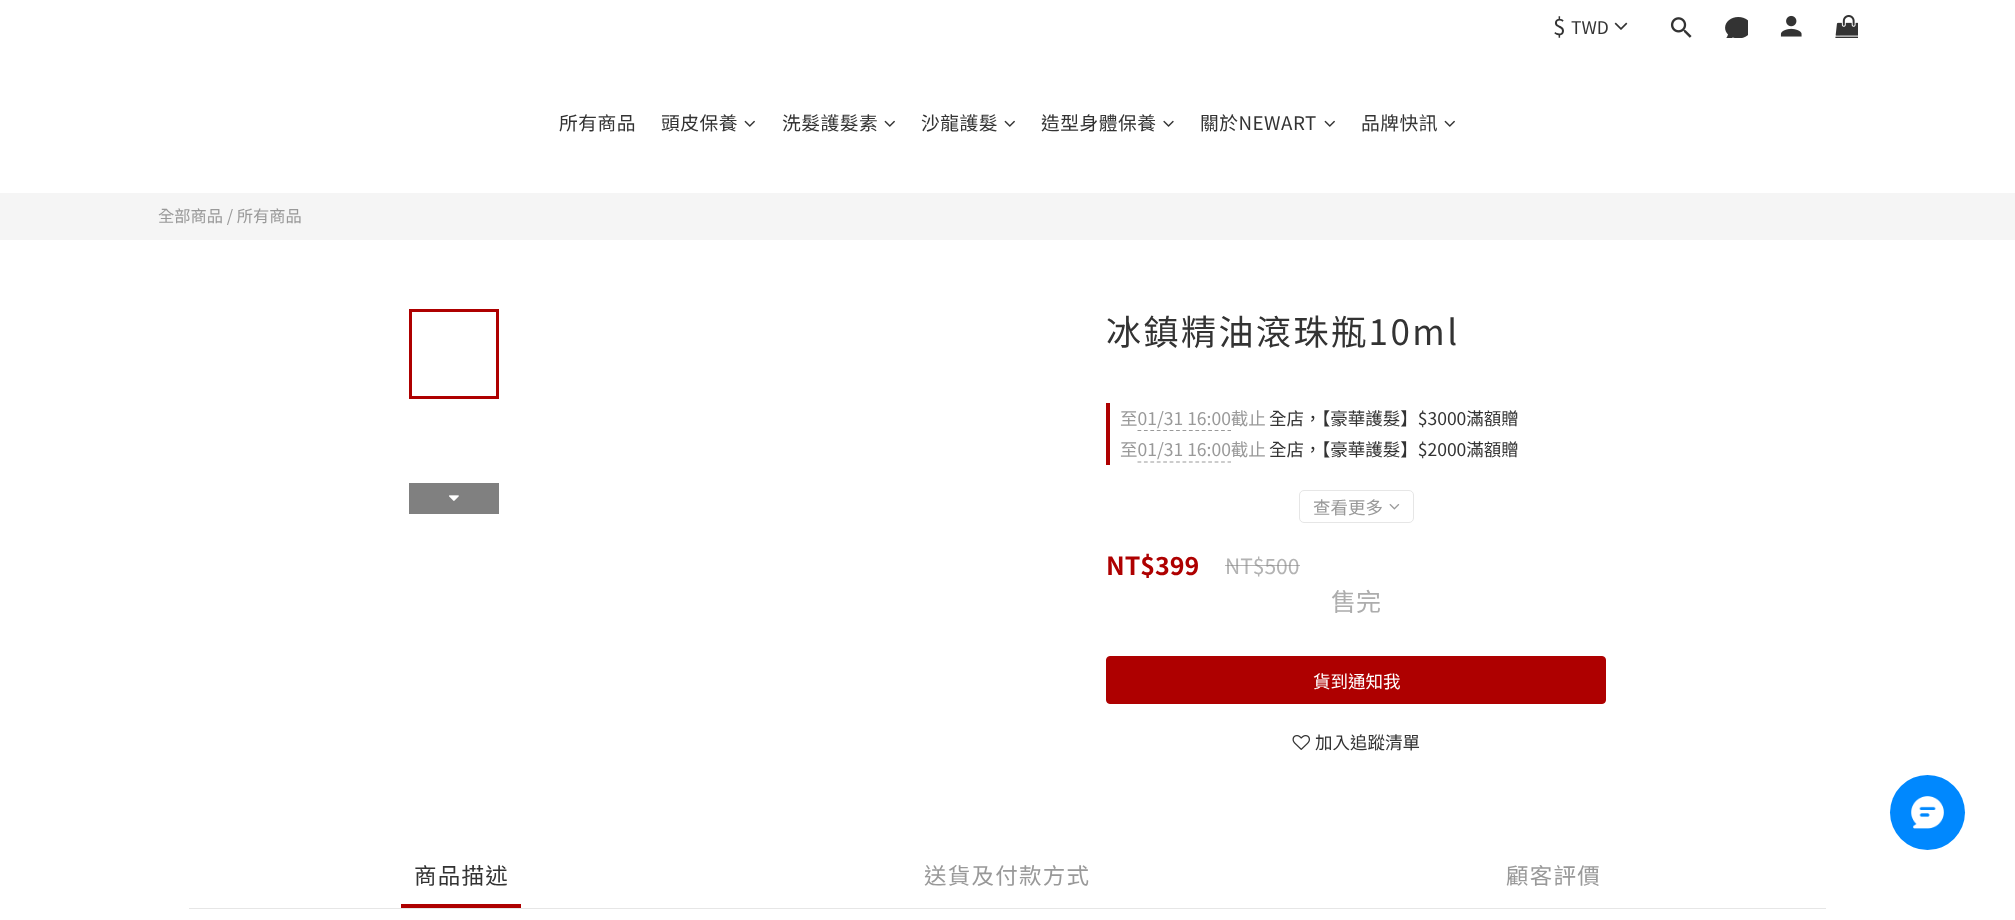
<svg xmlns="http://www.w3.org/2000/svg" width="2015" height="920">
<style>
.a{font:22.5px Noto Sans TC;letter-spacing:1.25px;fill:#333}
.b{font:17.5px Noto Sans TC;fill:#333}
.c{font:18.75px Noto Sans TC;letter-spacing:0.5px;fill:#333}
.d{font:16.25px Noto Sans TC;fill:#999}
.e{font:35px Noto Sans TC;letter-spacing:2.5px;fill:#333}
.f{font:17.5px Noto Sans TC;fill:#999}
.g{font:bold 25px Noto Sans TC;fill:#ae0000}
.h{font:21px Noto Sans TC;fill:#b3b3b3}
.i{font:25px Noto Sans TC;fill:#adadad}
.j{font:17.5px Noto Sans TC;fill:#fff}
.k{font:22.5px Noto Sans TC;letter-spacing:1.25px;fill:#999}
</style>
<rect width="100%" height="100%" fill="#fff"/>
<image href="1.png" x="1614" y="22" width="14" height="8"/>
<image href="2.png" x="1670" y="17" width="22" height="21"/>
<image href="3.png" x="1725" y="17" width="23" height="21"/>
<image href="4.png" x="1780" y="15" width="22" height="22"/>
<image href="5.png" x="1835" y="15" width="23" height="23"/>
<image href="6.png" x="744" y="120" width="11" height="7"/>
<image href="6.png" x="884" y="120" width="11" height="7"/>
<image href="6.png" x="1004" y="120" width="11" height="7"/>
<image href="7.png" x="1163" y="120" width="11" height="7"/>
<image href="6.png" x="1324" y="120" width="11" height="7"/>
<image href="6.png" x="1444" y="120" width="11" height="7"/>
<path fill="#f5f5f5" d="M0 193h2015v47H0z"/>
<path fill="none" stroke="#ae0000" stroke-width="3" d="M410.5 310.5h87v87H410.5z"/>
<path fill="#808080" d="M409 483h90v31H409z"/>
<image href="8.png" x="449" y="495" width="10" height="6"/>
<path fill="#ae0000" d="M1106 403h4v62H1106z"/>
<path fill="none" stroke="#999" stroke-width="1.2" stroke-dasharray="3.75 2.68" d="M1137.5 430.5h93.5"/>
<path fill="none" stroke="#999" stroke-width="1.2" stroke-dasharray="3.75 2.68" d="M1137.5 462h93.5"/>
<rect fill="none" stroke="#e6e6e6" x="1299.5" y="490.5" width="114" height="32" rx="4.5"/>
<image href="9.png" x="1389" y="504" width="11" height="6"/>
<rect fill="#ae0000" stroke="#ae0000" x="1106.5" y="656.5" width="499" height="47" rx="3.5"/>
<image href="10.png" x="1292" y="735" width="18" height="15"/>
<path fill="#e6e6e6" d="M189 908h1637v1H189z"/>
<path fill="#ae0000" d="M401 904h120v4H401z"/>
<circle fill="#0088fe" cx="1927.5" cy="812.5" r="37.5"/>
<image href="11.png" x="1911" y="796" width="33" height="33"/>
<text class="a" x="1553" y="35">$</text>
<text class="b" x="1571" y="34">TWD</text>
<text class="c" x="559" y="130">所有商品</text>
<text class="c" x="661" y="130">頭皮保養</text>
<text class="c" x="782" y="130">洗髮護髮素</text>
<text class="c" x="921" y="130">沙龍護髮</text>
<text class="c" x="1041" y="130">造型身體保養</text>
<text class="c" x="1200" y="130">關於NEWART</text>
<text class="c" x="1361" y="130">品牌快訊</text>
<text class="d" x="158" y="222">全部商品 / 所有商品</text>
<text class="e" x="1106" y="345">冰鎮精油滾珠瓶10ml</text>
<text class="f" x="1120" y="425">至01/31 16:00截止</text>
<text class="b" x="1269" y="425">全店，【豪華護髮】$3000滿額贈</text>
<text class="f" x="1120" y="456">至01/31 16:00截止</text>
<text class="b" x="1269" y="456">全店，【豪華護髮】$2000滿額贈</text>
<text class="f" x="1313" y="514">查看更多</text>
<text class="g" x="1106" y="575">NT$399</text>
<text class="h" x="1225" y="574">NT$500</text>
<path fill="#80808099" d="M1225 565h75v1H1225z"/>
<text class="i" x="1331" y="611">售完</text>
<text class="j" x="1313" y="688">貨到通知我</text>
<text class="b" x="1315" y="749">加入追蹤清單</text>
<text class="a" x="414" y="884">商品描述</text>
<text class="k" x="924" y="884">送貨及付款方式</text>
<text class="k" x="1506" y="884">顧客評價</text>
</svg>
